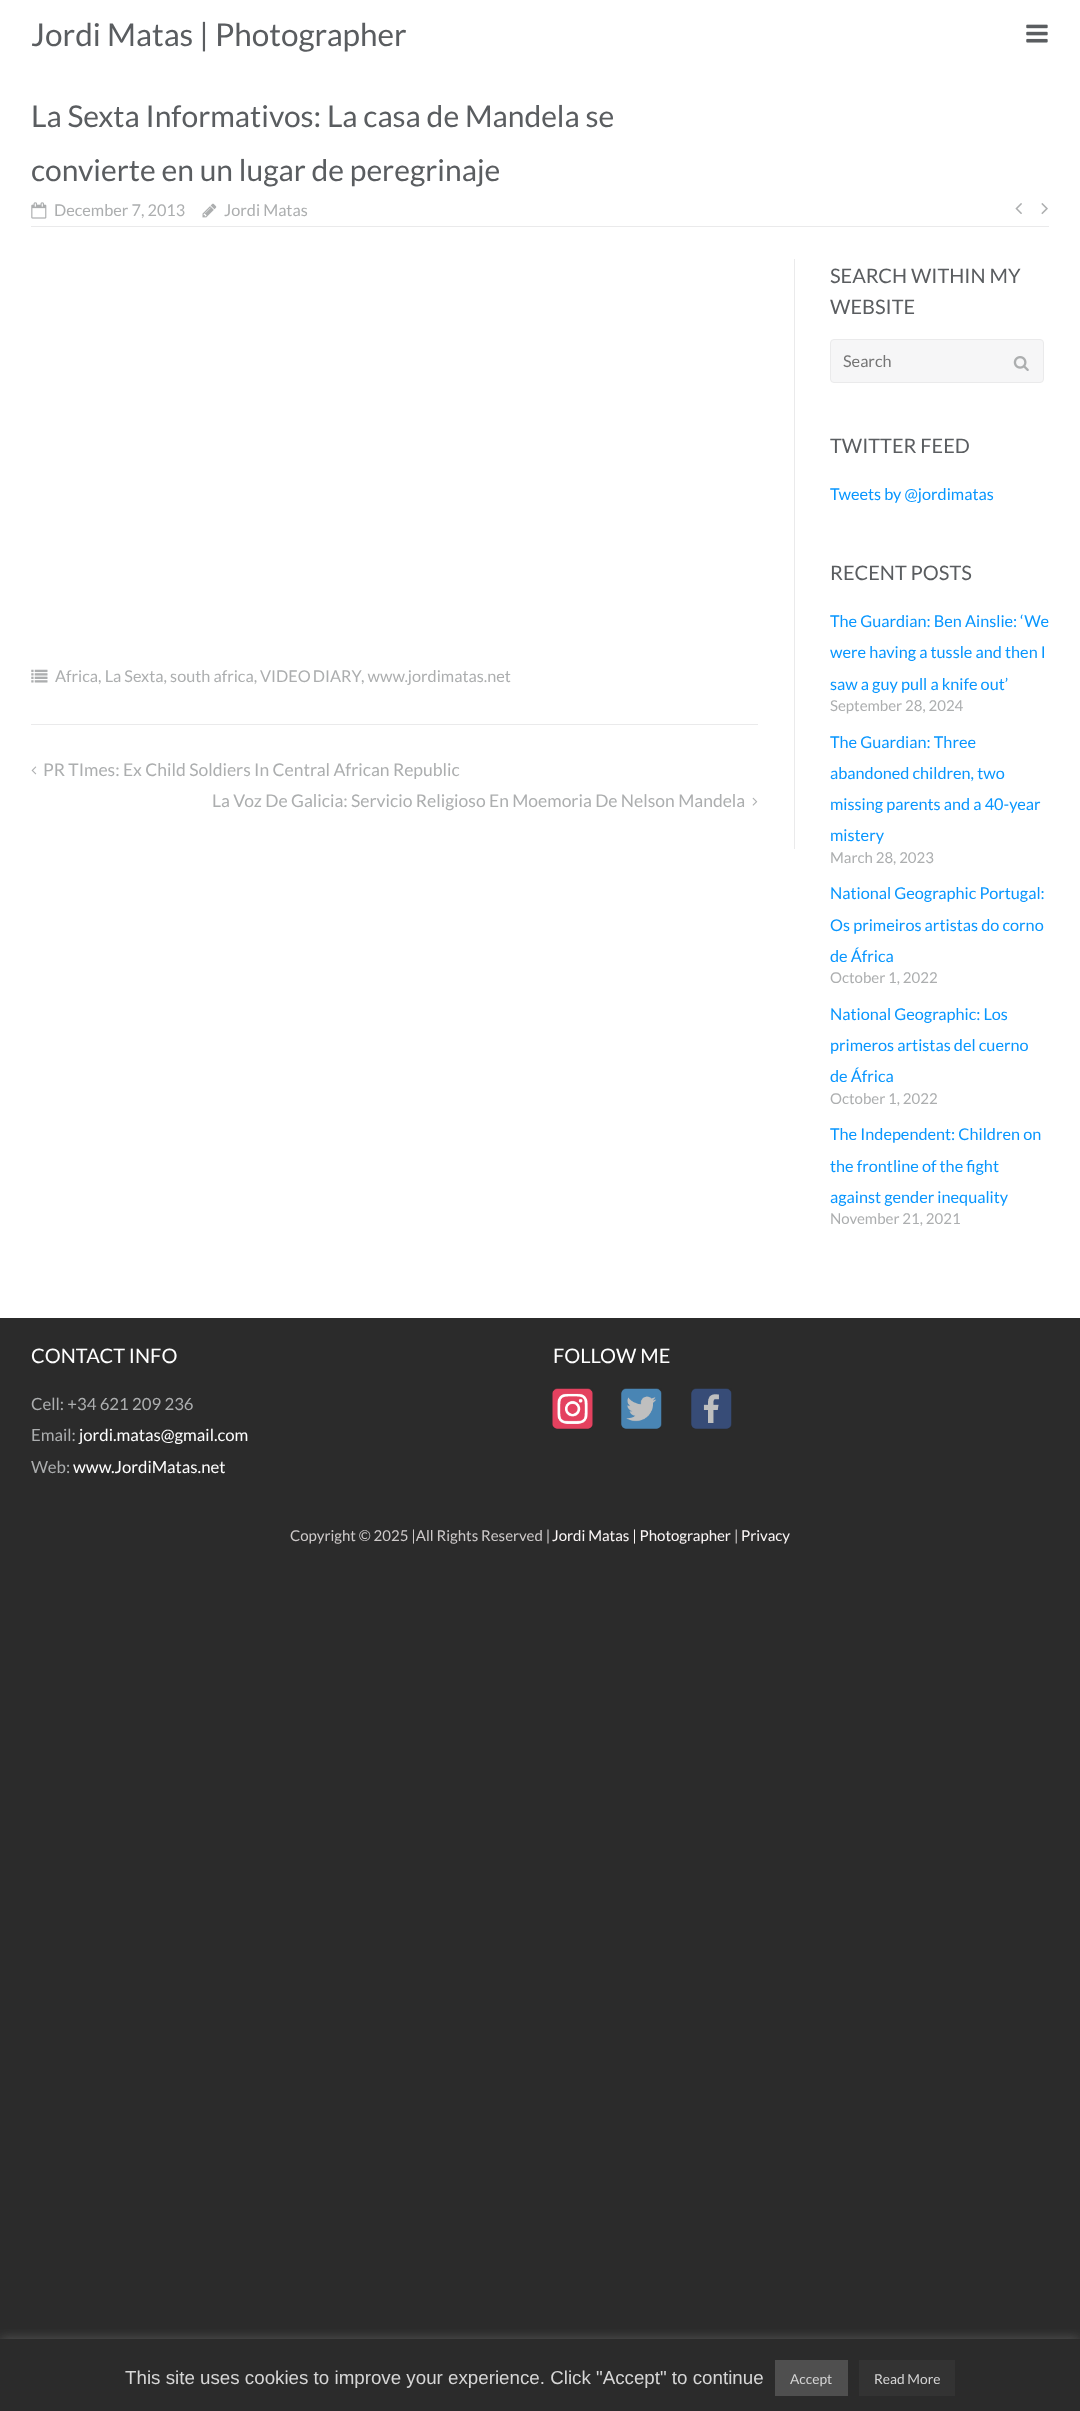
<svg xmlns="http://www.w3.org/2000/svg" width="1080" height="2411">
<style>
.a{font:31.5px Lato;fill:#5a5d60}
.b{font:30px Lato;fill:#5a5d60}
.c{font:16.25px Lato;fill:#acaeaf}
.d{font:17.5px Lato;fill:#acaeaf}
.e{font:20px Lato;fill:#5a5d60}
.f{font:16.25px Lato;fill:#757575}
.g{font:16.25px Lato;fill:#0896fe}
.h{font:15px Lato;fill:#acaeaf}
.i{font:20px Lato;fill:#fff}
.j{font:16.75px Lato;fill:#acaeaf}
.k{font:16.75px Lato;fill:#fff}
.l{font:15px Lato;fill:#cecaca}
.m{font:15px Lato;fill:#fcf7f7}
.n{font:18.75px Liberation Sans;fill:#d6d6d6}
.o{font:13.75px Lato;fill:#d6d6d6}
</style>
<defs>
<clipPath id="clip1"><path d="M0 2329h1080v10H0z"/></clipPath>
</defs>
<rect width="100%" height="100%" fill="#2b2b2b"/>
<path fill="#fff" d="M0 0h1080v1318H0z"/>
<image href="1.png" x="1026" y="24" width="22" height="19"/>
<path fill="#eaeaeb" d="M31 226h1018v1H31z"/>
<image href="2.png" x="31" y="202" width="16" height="17"/>
<image href="3.png" x="202" y="203" width="15" height="15"/>
<image href="4.png" x="1015" y="203" width="7" height="11"/>
<image href="5.png" x="1041" y="203" width="7" height="12"/>
<path fill="#eaeaeb" d="M794 259h1v590H794z"/>
<image href="6.png" x="31" y="669" width="17" height="14"/>
<path fill="#eaeaeb" d="M31 724h727v1H31z"/>
<image href="7.png" x="31" y="766" width="6" height="9"/>
<image href="8.png" x="752" y="797" width="6" height="9"/>
<rect fill="#f6f6f7" stroke="#eaeaeb" x="830.5" y="339.5" width="213" height="43" rx="3.5"/>
<image href="9.png" x="1013" y="356" width="16" height="15"/>
<image href="10.png" x="552" y="1388" width="41" height="41"/>
<image href="11.png" x="621" y="1388" width="41" height="41"/>
<image href="12.png" x="691" y="1388" width="41" height="41"/>
<g clip-path="url(#clip1)">
<path fill="#acabab4d" filter="blur(6px)" d="M0 2338h1080v72H0z"/>
</g>
<path fill="#4f4f4f" d="M775 2360h73v36H775z"/>
<path fill="#333" d="M859 2360h96v36H859z"/>
<text class="a" x="31" y="46">Jordi Matas | Photographer</text>
<text class="b" x="31" y="127">La Sexta Informativos: La casa de Mandela se</text>
<text class="b" x="31" y="181">convierte en un lugar de peregrinaje</text>
<text class="c" x="54" y="216">December 7, 2013</text>
<text class="c" x="224" y="216">Jordi Matas</text>
<text class="c" x="55" y="682">Africa, La Sexta, south africa,</text>
<text class="c" x="260" y="682" word-spacing="-1">VIDEO DIARY</text>
<text class="c" x="361" y="682">, www.jordimatas.net</text>
<text class="d" x="43" y="776">PR TImes: Ex Child Soldiers In Central African Republic</text>
<text class="d" x="212" y="807">La Voz De Galicia: Servicio Religioso En Moemoria De Nelson Mandela</text>
<text class="e" x="830" y="283">SEARCH WITHIN MY</text>
<text class="e" x="830" y="314">WEBSITE</text>
<text class="f" x="843" y="367">Search</text>
<text class="e" x="830" y="453">TWITTER FEED</text>
<text class="g" x="830" y="500">Tweets by @jordimatas</text>
<text class="e" x="830" y="580">RECENT POSTS</text>
<text class="g" x="830" y="627">The Guardian: Ben Ainslie: ‘We</text>
<text class="g" x="830" y="658">were having a tussle and then I</text>
<text class="g" x="830" y="690">saw a guy pull a knife out’</text>
<text class="h" x="830" y="711">September 28, 2024</text>
<text class="g" x="830" y="748">The Guardian: Three</text>
<text class="g" x="830" y="779">abandoned children, two</text>
<text class="g" x="830" y="810">missing parents and a 40-year</text>
<text class="g" x="830" y="841">mistery</text>
<text class="h" x="830" y="863">March 28, 2023</text>
<text class="g" x="830" y="899">National Geographic Portugal:</text>
<text class="g" x="830" y="931">Os primeiros artistas do corno</text>
<text class="g" x="830" y="962">de África</text>
<text class="h" x="830" y="983">October 1, 2022</text>
<text class="g" x="830" y="1020">National Geographic: Los</text>
<text class="g" x="830" y="1051">primeros artistas del cuerno</text>
<text class="g" x="830" y="1082">de África</text>
<text class="h" x="830" y="1104">October 1, 2022</text>
<text class="g" x="830" y="1140">The Independent: Children on</text>
<text class="g" x="830" y="1172">the frontline of the fight</text>
<text class="g" x="830" y="1203">against gender inequality</text>
<text class="h" x="830" y="1224">November 21, 2021</text>
<text class="i" x="31" y="1363">CONTACT INFO</text>
<text class="j" x="31" y="1410">Cell: +34 621 209 236</text>
<text class="j" x="31" y="1441">Email:</text>
<text class="k" x="79" y="1441">jordi.matas@gmail.com</text>
<text class="j" x="31" y="1473">Web:</text>
<text class="k" x="73" y="1473">www.JordiMatas.net</text>
<text class="i" x="553" y="1363">FOLLOW ME</text>
<text class="l" x="290" y="1541">Copyright © 2025 |All Rights Reserved |</text>
<text class="m" x="552" y="1541">Jordi Matas | Photographer</text>
<text class="l" x="734" y="1541">|</text>
<text class="m" x="741" y="1541">Privacy</text>
<text class="n" x="125" y="2384">This site uses cookies to improve your experience. Click "Accept" to continue</text>
<text class="o" x="790" y="2384">Accept</text>
<text class="o" x="874" y="2384">Read More</text>
</svg>
